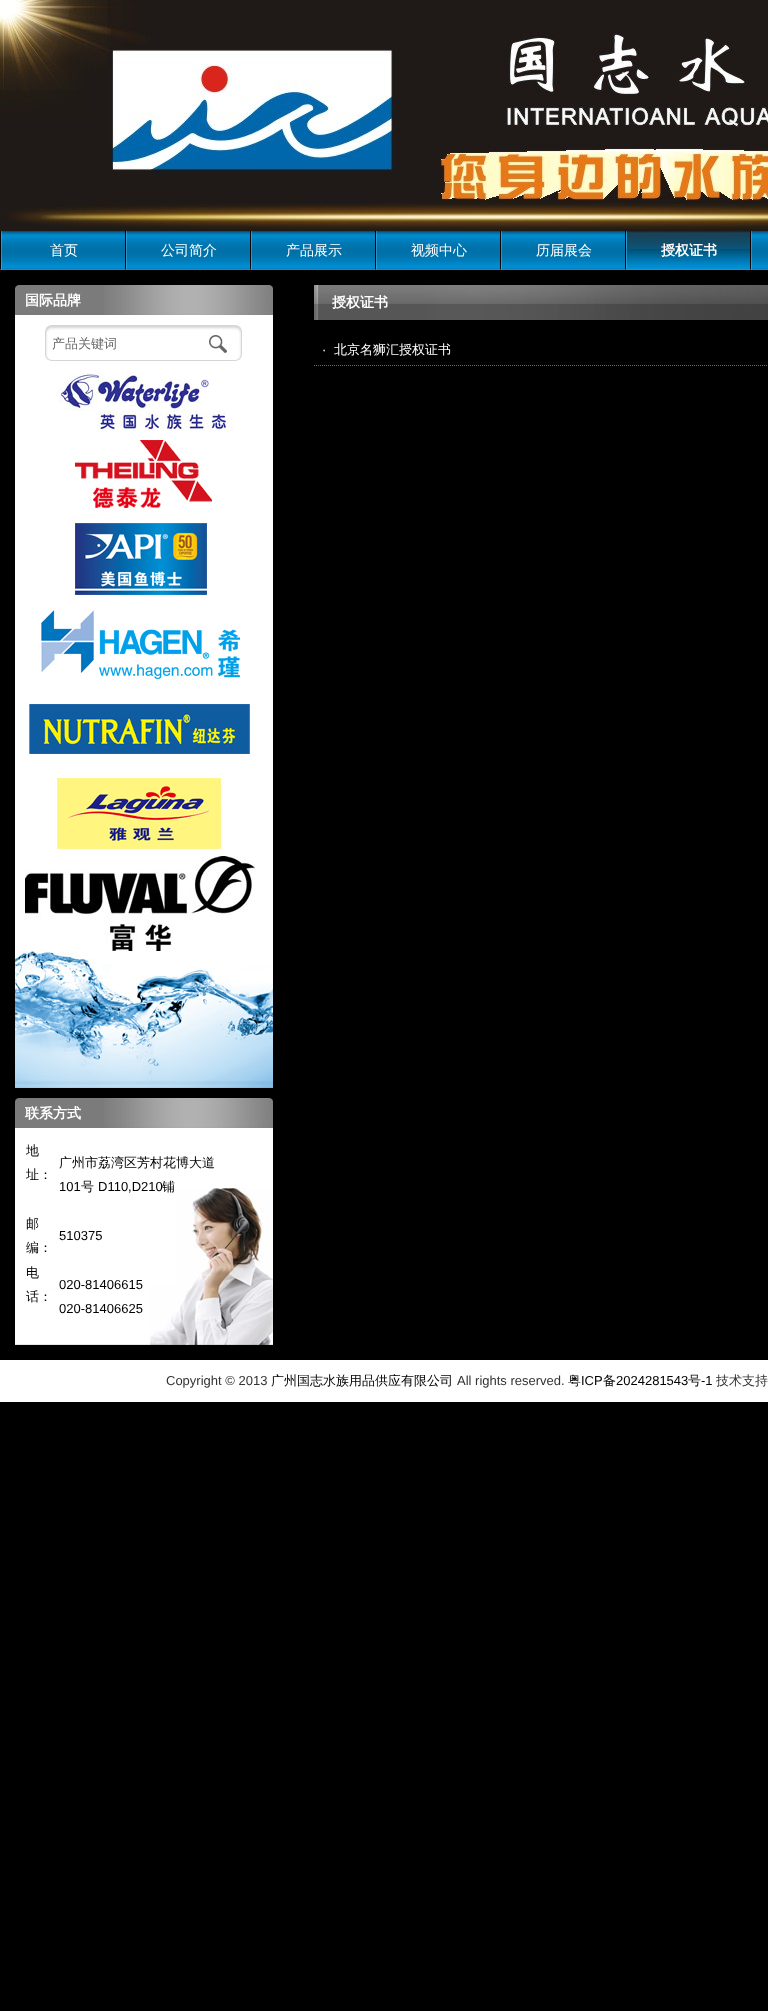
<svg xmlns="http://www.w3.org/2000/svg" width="768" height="2011">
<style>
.a{font:500 14px WenQuanYi Zen Hei;fill:#fff}
.b{font:bold 14px WenQuanYi Zen Hei;fill:#fff}
.c{font:500 13px WenQuanYi Zen Hei;fill:#666}
.d{font:500 13px WenQuanYi Zen Hei;fill:#000}
.e{font:13px Liberation Sans;fill:#000}
.f{font:13px Liberation Sans;fill:#fff}
.g{font:500 13px WenQuanYi Zen Hei;fill:#fff}
.h{font:13px Liberation Sans;fill:#333}
.i{font:500 13px WenQuanYi Zen Hei;fill:#333}
</style>
<rect width="100%" height="100%" fill="#000"/>
<image href="1.png" x="0" y="0" width="768" height="231"/>
<image href="2.png" x="2" y="231" width="766" height="39"/>
<image href="3.png" x="0" y="231" width="2" height="39"/>
<image href="3.png" x="125" y="231" width="2" height="39"/>
<image href="3.png" x="250" y="231" width="2" height="39"/>
<image href="3.png" x="375" y="231" width="2" height="39"/>
<image href="3.png" x="500" y="231" width="2" height="39"/>
<image href="3.png" x="625" y="231" width="2" height="39"/>
<image href="3.png" x="750" y="231" width="2" height="39"/>
<image href="4.png" x="627" y="231" width="123" height="39"/>
<path fill="#fff" d="M15 315h258v636H15z"/>
<image href="5.png" x="15" y="285" width="258" height="30"/>
<image href="6.png" x="45" y="325" width="197" height="36"/>
<image href="7.png" x="15" y="951" width="258" height="137"/>
<image href="8.png" x="57" y="371" width="176" height="60"/>
<image href="9.png" x="73" y="439" width="144" height="72"/>
<image href="10.png" x="73" y="516" width="136" height="80"/>
<image href="11.png" x="41" y="609" width="200" height="72"/>
<image href="12.png" x="25" y="702" width="230" height="56"/>
<image href="13.png" x="57" y="772" width="168" height="78"/>
<image href="14.png" x="25" y="856" width="230" height="95"/>
<path fill="#fff" d="M15 1128h258v60H15z"/>
<image href="5.png" x="15" y="1098" width="258" height="30"/>
<image href="15.png" x="15" y="1188" width="258" height="157"/>
<image href="16.png" x="314" y="285" width="454" height="35"/>
<path fill="none" stroke="#666" stroke-dasharray="1 1" d="M314 365.5h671"/>
<path fill="#fff" d="M0 1360h768v42H0z"/>
<text class="a" x="50" y="255">首页</text>
<text class="a" x="161" y="255">公司简介</text>
<text class="a" x="286" y="255">产品展示</text>
<text class="a" x="411" y="255">视频中心</text>
<text class="a" x="536" y="255">历届展会</text>
<text class="b" x="661" y="255">授权证书</text>
<text class="b" x="25" y="305">国际品牌</text>
<text class="c" x="52" y="348">产品关键词</text>
<text class="b" x="25" y="1118">联系方式</text>
<text class="d" x="26" y="1155">地</text>
<text class="d" x="26" y="1179">址：</text>
<text class="d" x="59" y="1167">广州市荔湾区芳村花博大道</text>
<text class="e" x="59" y="1191">101</text>
<text class="d" x="81" y="1191">号</text>
<text class="e" x="98" y="1191">D110,D210</text>
<text class="d" x="162" y="1191">铺</text>
<text class="d" x="26" y="1228">邮</text>
<text class="d" x="26" y="1252">编：</text>
<text class="e" x="59" y="1240">510375</text>
<text class="d" x="26" y="1277">电</text>
<text class="d" x="26" y="1301">话：</text>
<text class="e" x="59" y="1289">020-81406615</text>
<text class="e" x="59" y="1313">020-81406625</text>
<text class="b" x="332" y="307">授权证书</text>
<text class="f" x="322" y="354">·</text>
<text class="g" x="334" y="354">北京名狮汇授权证书</text>
<text class="h" x="166" y="1385">Copyright © 2013</text>
<text class="d" x="271" y="1385">广州国志水族用品供应有限公司</text>
<text class="h" x="457" y="1385">All rights reserved.</text>
<text class="d" x="568" y="1385">粤</text>
<text class="e" x="581" y="1385">ICP</text>
<text class="d" x="603" y="1385">备</text>
<text class="e" x="616" y="1385">2024281543</text>
<text class="d" x="688" y="1385">号</text>
<text class="e" x="701" y="1385">-1</text>
<text class="i" x="716" y="1385">技术支持</text>
</svg>
